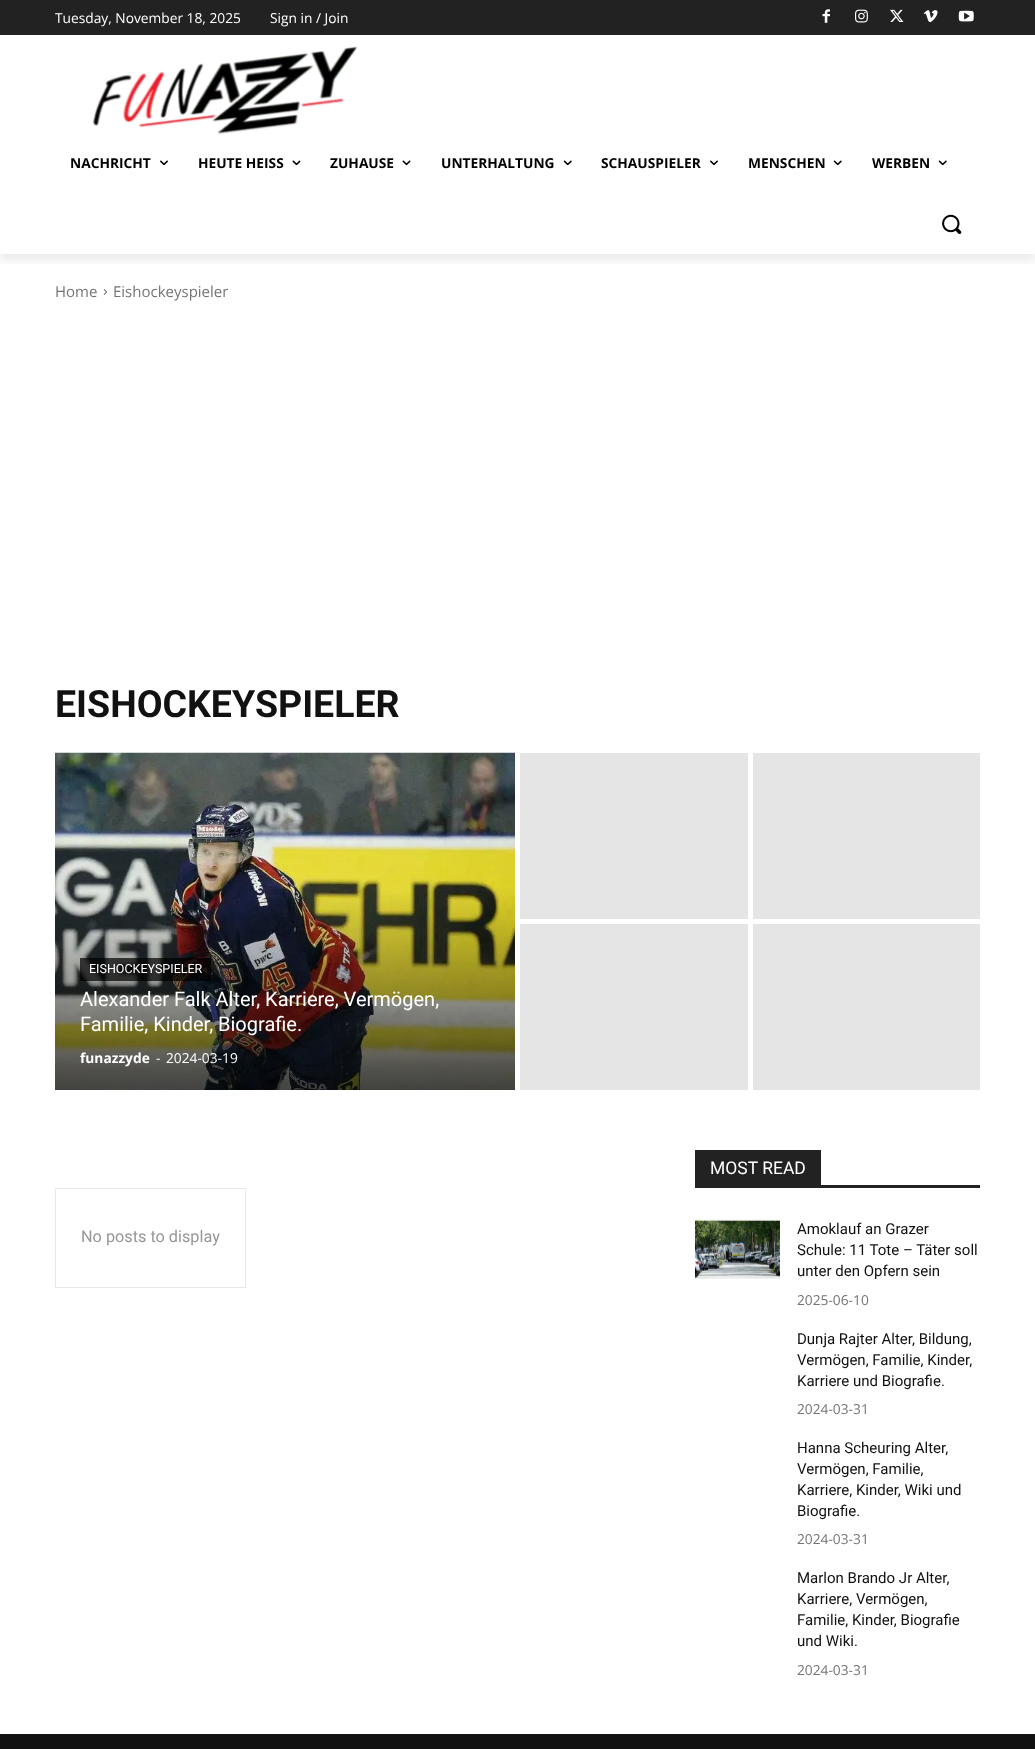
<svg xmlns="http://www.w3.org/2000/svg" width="1035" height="1749">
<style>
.a{font:13.75px Open Sans;fill:#fff}
.b{font:bold 13.75px Open Sans;fill:#000}
.c{font:15px Open Sans;fill:#747474}
.d{font:bold 37.5px Roboto;fill:#111}
.e{font:12.5px Roboto;fill:#fff}
.f{font:20px Roboto;fill:#fff}
.g{font:bold 13.75px Open Sans;fill:#fff}
.h{font:16.25px Roboto;fill:#979797}
.i{font:17.5px Roboto;fill:#fff}
.j{font:15px Roboto;fill:#111}
.k{font:13.75px Open Sans;fill:#747474}
</style>
<defs>
<clipPath id="clip1"><path d="M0 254h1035v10H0z"/></clipPath>
</defs>
<rect width="100%" height="100%" fill="#fff"/>
<path fill="#222" d="M0 0h1035v35H0z"/>
<image href="1.png" x="822" y="9" width="8" height="14"/>
<image href="2.png" x="855" y="9" width="13" height="14"/>
<image href="3.png" x="890" y="9" width="14" height="13"/>
<image href="4.png" x="923" y="10" width="15" height="13"/>
<image href="5.png" x="958" y="10" width="16" height="12"/>
<image href="6.png" x="92" y="46" width="266" height="89"/>
<g clip-path="url(#clip1)">
<path fill="#00000014" filter="blur(5px)" d="M0 8h1035v253H0z"/>
</g>
<image href="7.png" x="160" y="160" width="8" height="6"/>
<image href="8.png" x="292" y="160" width="9" height="6"/>
<image href="8.png" x="402" y="160" width="9" height="6"/>
<image href="9.png" x="563" y="160" width="9" height="6"/>
<image href="7.png" x="710" y="160" width="8" height="6"/>
<image href="9.png" x="833" y="160" width="9" height="6"/>
<image href="9.png" x="938" y="160" width="9" height="6"/>
<image href="10.png" x="942" y="214" width="20" height="20"/>
<image href="11.png" x="103" y="289" width="5" height="6"/>
<image href="12.png" x="55" y="752" width="460" height="338"/>
<path fill="#000000b3" d="M80 958h131v23H80z"/>
<path fill="#e5e5e5" d="M520 753h228v166H520z"/>
<path fill="#e5e5e5" d="M753 753h227v166H753z"/>
<path fill="#e5e5e5" d="M520 924h228v166H520z"/>
<path fill="#e5e5e5" d="M753 924h227v166H753z"/>
<path fill="none" stroke="#e8e8e8" d="M55.5 1188.5h190v99H55.5z"/>
<path fill="#222" d="M695 1185h285v3H695z"/>
<path fill="#222" d="M695 1150h126v35H695z"/>
<image href="13.png" x="695" y="1219" width="85" height="60"/>
<path fill="#111" d="M0 1734h1035v15H0z"/>
<text class="a" x="55" y="23">Tuesday, November 18, 2025</text>
<text class="a" x="270" y="23">Sign in / Join</text>
<text class="b" x="70" y="168">NACHRICHT</text>
<text class="b" x="198" y="168">HEUTE HEISS</text>
<text class="b" x="330" y="168">ZUHAUSE</text>
<text class="b" x="441" y="168">UNTERHALTUNG</text>
<text class="b" x="601" y="168">SCHAUSPIELER</text>
<text class="b" x="748" y="168">MENSCHEN</text>
<text class="b" x="872" y="168">WERBEN</text>
<text class="c" x="55" y="297">Home</text>
<text class="c" x="113" y="297">Eishockeyspieler</text>
<text class="d" x="55" y="717">EISHOCKEYSPIELER</text>
<text class="e" x="89" y="973">EISHOCKEYSPIELER</text>
<text class="f" x="80" y="1006">Alexander Falk Alter, Karriere, Vermögen,</text>
<text class="f" x="80" y="1031">Familie, Kinder, Biografie.</text>
<text class="g" x="80" y="1063">funazzyde</text>
<text class="a" x="156" y="1063">-</text>
<text class="a" x="166" y="1063">2024-03-19</text>
<text class="h" x="81" y="1242">No posts to display</text>
<text class="i" x="710" y="1174">MOST READ</text>
<text class="j" x="797" y="1234">Amoklauf an Grazer</text>
<text class="j" x="797" y="1255">Schule: 11 Tote – Täter soll</text>
<text class="j" x="797" y="1276">unter den Opfern sein</text>
<text class="k" x="797" y="1305">2025-06-10</text>
<text class="j" x="797" y="1344">Dunja Rajter Alter, Bildung,</text>
<text class="j" x="797" y="1365">Vermögen, Familie, Kinder,</text>
<text class="j" x="797" y="1386">Karriere und Biografie.</text>
<text class="k" x="797" y="1414">2024-03-31</text>
<text class="j" x="797" y="1453">Hanna Scheuring Alter,</text>
<text class="j" x="797" y="1474">Vermögen, Familie,</text>
<text class="j" x="797" y="1495">Karriere, Kinder, Wiki und</text>
<text class="j" x="797" y="1516">Biografie.</text>
<text class="k" x="797" y="1544">2024-03-31</text>
<text class="j" x="797" y="1583">Marlon Brando Jr Alter,</text>
<text class="j" x="797" y="1604">Karriere, Vermögen,</text>
<text class="j" x="797" y="1625">Familie, Kinder, Biografie</text>
<text class="j" x="797" y="1646">und Wiki.</text>
<text class="k" x="797" y="1675">2024-03-31</text>
</svg>
